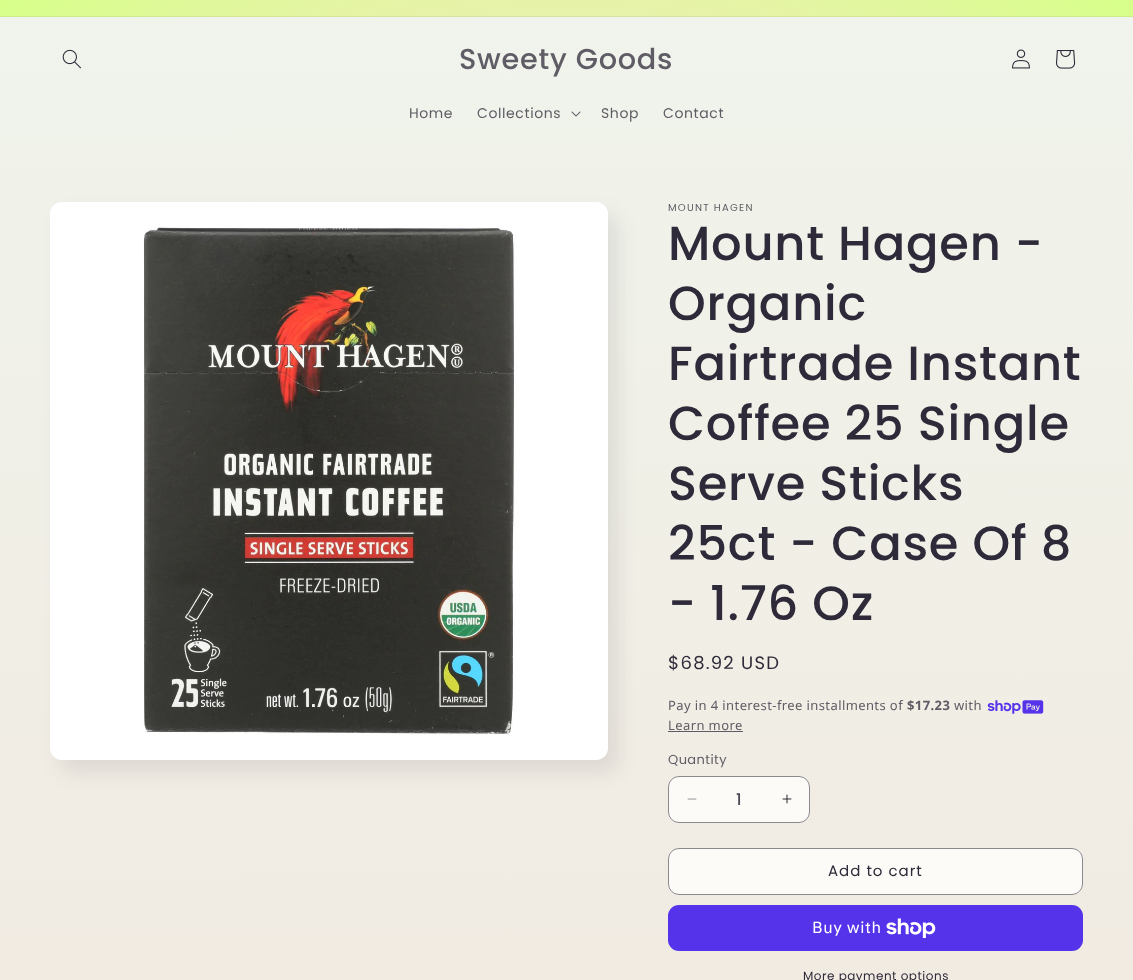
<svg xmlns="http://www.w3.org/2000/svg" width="1133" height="980">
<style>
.a{font:500 28.75px Poppins;letter-spacing:0.75px;fill:#5f5c65}
.b{font:14px Poppins;letter-spacing:0.6px;fill:#5f5c65}
.c{font:10px Poppins;letter-spacing:1.25px;fill:#5f5c65}
.d{font:500 48px Poppins;letter-spacing:0.75px;fill:#2e2a39}
.e{font:18px Poppins;letter-spacing:1.25px;fill:#2e2a39}
.f{font:13px Noto Sans;letter-spacing:0.4px;fill:#5f5c65}
.g{font:bold 13px Noto Sans;letter-spacing:0.4px;fill:#5f5c65}
.h{font:13px Poppins;letter-spacing:0.4px;fill:#5f5c65}
.i{font:500 16px Poppins;fill:#4d4956}
.j{font:15px Poppins;letter-spacing:1px;fill:#2e2a39}
.k{font:16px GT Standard;letter-spacing:0.6px;fill:#fff}
.l{font:12px Poppins;letter-spacing:0.5px;fill:#2e2a39}
</style>
<defs>
<linearGradient id="g1" gradientUnits="userSpaceOnUse" x1="566" y1="0" x2="567" y2="980"><stop offset="0" stop-color="#f0f4ec"/><stop offset="1" stop-color="#f1ebe2"/></linearGradient>
<radialGradient id="g2" gradientUnits="userSpaceOnUse" cx="0" cy="0" r="1" gradientTransform="matrix(801 0 0 693 567 490)"><stop offset="0" stop-color="#ffe5e5"/><stop offset="0.25" stop-color="#ffe0da"/><stop offset="1" stop-color="#d7ff89"/></radialGradient>
<radialGradient id="g3" gradientUnits="userSpaceOnUse" cx="0" cy="0" r="1" gradientTransform="matrix(801 0 0 693 567 490)"><stop offset="0" stop-color="#eed6d7"/><stop offset="0.25" stop-color="#eed1cd"/><stop offset="1" stop-color="#c9ee83"/></radialGradient>
</defs>
<rect width="100%" height="100%" fill="#fff"/>
<path fill="url(#g1)" d="M0 17h1133v963H0z"/>
<path fill="url(#g2)" d="M0 0h1133v16H0z"/>
<path fill="url(#g3)" d="M0 16h1133v1H0z"/>
<image href="1.png" x="62" y="49" width="19" height="20"/>
<image href="2.png" x="1012" y="49" width="18" height="20"/>
<image href="3.png" x="1056" y="50" width="20" height="19"/>
<image href="4.png" x="571" y="111" width="10" height="6"/>
<rect fill="#2e2a391a" filter="blur(10px)" x="60" y="214" width="558" height="558" rx="12"/>
<image href="5.png" x="50" y="202" width="558" height="558"/>
<image href="6.png" x="987" y="700" width="57" height="14"/>
<path fill="#5f5b64" d="M668 731h75v1H668z"/>
<rect fill="#fdfbf7" x="668" y="776" width="142" height="47" rx="11"/>
<image href="7.png" x="687" y="798" width="10" height="2"/>
<image href="8.png" x="782" y="794" width="10" height="10"/>
<rect fill="none" stroke="#2e2a398c" x="668.5" y="776.5" width="141" height="46" rx="10.5"/>
<rect fill="#fdfbf7" x="668" y="848" width="415" height="47" rx="11"/>
<rect fill="none" stroke="#fdfbf7" x="668.5" y="848.5" width="414" height="46" rx="10.5"/>
<rect fill="none" stroke="#8b888e" x="668.5" y="848.5" width="414" height="46" rx="10.5"/>
<rect fill="#5433eb" x="668" y="905" width="415" height="46" rx="11"/>
<image href="9.png" x="886" y="918" width="50" height="20"/>
<text class="a" x="459" y="69">Sweety Goods</text>
<text class="b" x="409" y="118">Home</text>
<text class="b" x="477" y="118">Collections</text>
<text class="b" x="601" y="118">Shop</text>
<text class="b" x="663" y="118">Contact</text>
<text class="c" x="668" y="211">MOUNT HAGEN</text>
<text class="d" x="668" y="260">Mount Hagen -</text>
<text class="d" x="668" y="320">Organic</text>
<text class="d" x="668" y="380">Fairtrade Instant</text>
<text class="d" x="668" y="440">Coffee 25 Single</text>
<text class="d" x="668" y="500">Serve Sticks</text>
<text class="d" x="668" y="560">25ct - Case Of 8</text>
<text class="d" x="668" y="620">- 1.76 Oz</text>
<text class="e" x="668" y="669">$68.92 USD</text>
<text class="f" x="668" y="710">Pay in 4 interest-free installments of</text>
<text class="g" x="907" y="710">$17.23</text>
<text class="f" x="954" y="710">with</text>
<text class="f" x="668" y="730">Learn more</text>
<text class="h" x="668" y="764">Quantity</text>
<text class="i" x="736" y="805">1</text>
<text class="j" x="828" y="876">Add to cart</text>
<text class="k" x="812" y="933">Buy with</text>
<text class="l" x="803" y="980">More payment options</text>
</svg>
